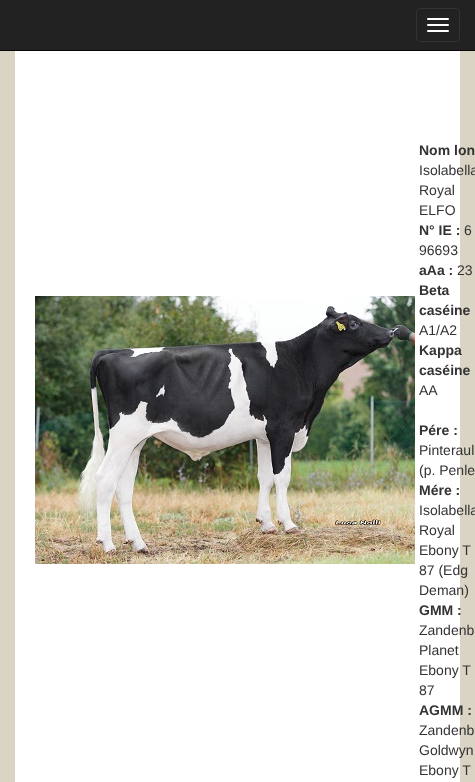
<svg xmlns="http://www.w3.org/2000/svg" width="475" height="782">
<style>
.a{font:bold 14px Liberation Sans;fill:#333}
.b{font:14px Liberation Sans;fill:#333}
</style>
<rect width="100%" height="100%" fill="#d9d4c3"/>
<path fill="#222" d="M0 0h475v50H0z"/>
<path fill="#080808" d="M0 50h475v1H0z"/>
<rect fill="none" stroke="#333" x="416.5" y="8.5" width="43" height="33" rx="3.5"/>
<rect fill="#fff" x="427" y="18" width="22" height="2" rx="1"/>
<rect fill="#fff" x="427" y="24" width="22" height="2" rx="1"/>
<rect fill="#fff" x="427" y="30" width="22" height="2" rx="1"/>
<path fill="#fff" d="M15 51h445v731H15z"/>
<image href="1.png" x="35" y="296" width="380" height="268"/>
<text class="a" x="419" y="155">Nom lon</text>
<text class="b" x="419" y="175">Isolabella</text>
<text class="b" x="419" y="195">Royal</text>
<text class="b" x="419" y="215">ELFO</text>
<text class="a" x="419" y="235">N° IE :</text>
<text class="b" x="464" y="235">6</text>
<text class="b" x="419" y="255">96693</text>
<text class="a" x="419" y="275">aAa :</text>
<text class="b" x="457" y="275">23</text>
<text class="a" x="419" y="295">Beta</text>
<text class="a" x="419" y="315">caséine</text>
<text class="b" x="419" y="335">A1/A2</text>
<text class="a" x="419" y="355">Kappa</text>
<text class="a" x="419" y="375">caséine</text>
<text class="b" x="419" y="395">AA</text>
<text class="a" x="419" y="435">Pére :</text>
<text class="b" x="419" y="455">Pinteraul</text>
<text class="b" x="419" y="475">(p. Penle</text>
<text class="a" x="419" y="495">Mére :</text>
<text class="b" x="419" y="515">Isolabella</text>
<text class="b" x="419" y="535">Royal</text>
<text class="b" x="419" y="555">Ebony T</text>
<text class="b" x="419" y="575">87 (Edg</text>
<text class="b" x="419" y="595">Deman)</text>
<text class="a" x="419" y="615">GMM :</text>
<text class="b" x="419" y="635">Zandenb</text>
<text class="b" x="419" y="655">Planet</text>
<text class="b" x="419" y="675">Ebony T</text>
<text class="b" x="419" y="695">87</text>
<text class="a" x="419" y="715">AGMM :</text>
<text class="b" x="419" y="735">Zandenb</text>
<text class="b" x="419" y="755">Goldwyn</text>
<text class="b" x="419" y="775">Ebony T</text>
</svg>
